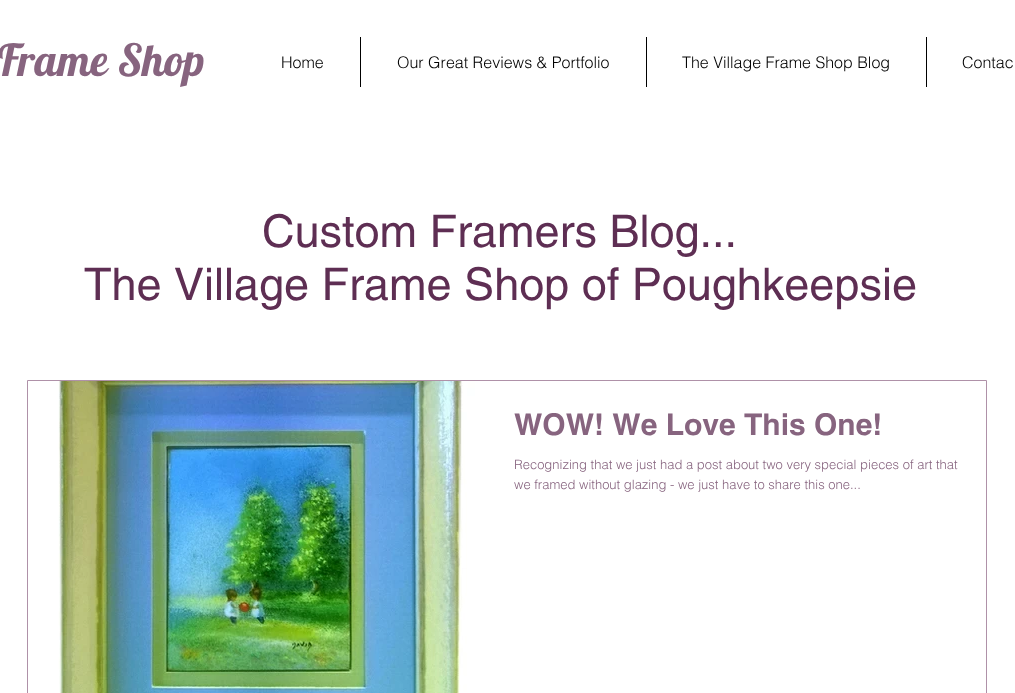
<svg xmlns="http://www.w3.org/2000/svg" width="1015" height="693">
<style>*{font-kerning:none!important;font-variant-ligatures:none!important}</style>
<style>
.a{font:44px Lobster;fill:#87647f}
.b{font:300 16px helvetica;fill:#000}
.c{font:45px helvetica;fill:#5e2e53}
.d{font:bold 30px helvetica;fill:#87647f}
.e{font:300 13px helvetica;fill:#87647f}
</style>
<rect width="100%" height="100%" fill="#fff"/>
<path fill="#000" d="M360 37h1v50H360z"/>
<path fill="#000" d="M646 37h1v50H646z"/>
<path fill="#000" d="M926 37h1v50H926z"/>
<path fill="none" stroke="#af91a8" d="M27.5 380.5h959v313H27.5z"/>
<image href="1.png" x="28" y="381" width="462" height="312"/>
<text class="a" x="-2" y="76">Frame Shop</text>
<text class="b" x="281" y="68">Home</text>
<text class="b" x="397" y="68">Our Great Reviews &amp; Portfolio</text>
<text class="b" x="682" y="68">The Village Frame Shop Blog</text>
<text class="b" x="962" y="68">Contac</text>
<text class="c" x="262" y="247">Custom Framers Blog...</text>
<text class="c" x="84" y="300">The Village Frame Shop of Poughkeepsie</text>
<text class="d" x="514" y="435">WOW! We Love</text>
<text class="d" x="744" y="435">This One!</text>
<text class="e" x="514" y="469">Recognizing that we just had a post about two very special pieces of art that</text>
<text class="e" x="514" y="489">we framed without glazing - we just have to share this one...</text>
</svg>
